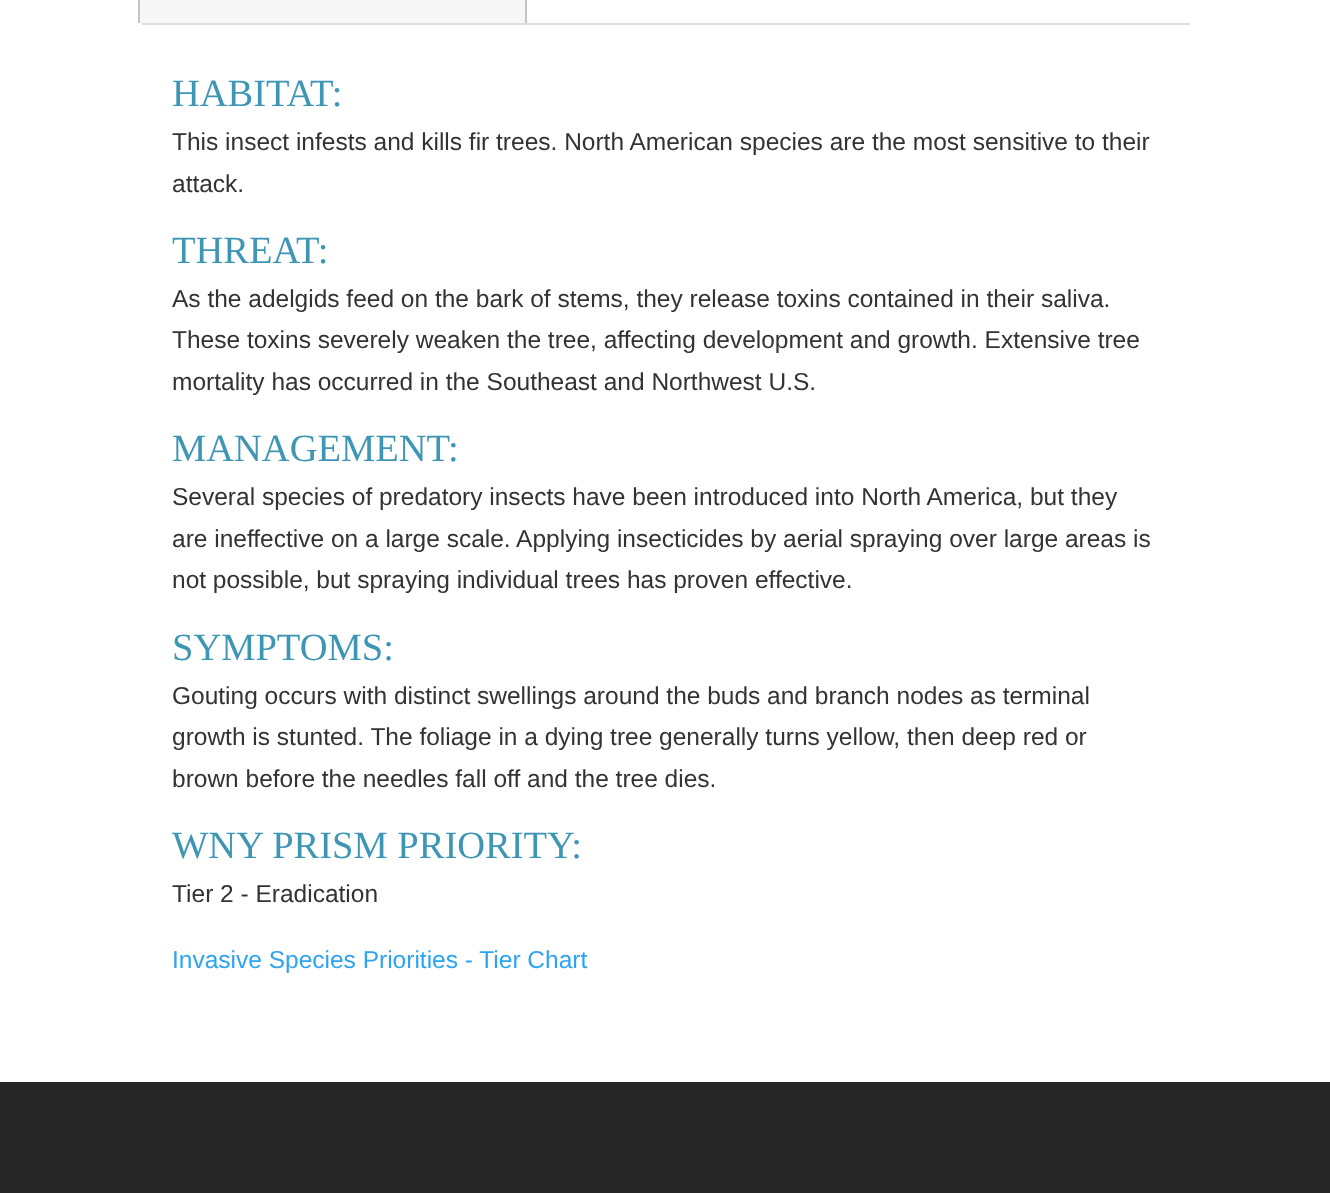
<svg xmlns="http://www.w3.org/2000/svg" width="1330" height="1193">
<style>
.a{font:38.5px Liberation Serif;fill:#3f96b4}
.b{font:24.5px Liberation Sans;fill:#333}
.c{font:24.5px Liberation Sans;fill:#2ea3f2}
</style>
<rect width="100%" height="100%" fill="#fff"/>
<path fill="#ddd" d="M142 23h1048v2H142z"/>
<path fill="#f6f6f6" d="M140 0h385v23H140z"/>
<path fill="#c5c5c5" fill-rule="evenodd" d="M144-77h378c2 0 5 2 5 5v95h-389v-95c0-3 3-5 6-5zm0 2h378c1 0 3 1 3 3v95h-385v-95c0-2 2-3 4-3z"/>
<path fill="#262626" d="M0 1082h1330v111H0z"/>
<text class="a" x="172" y="106">HABITAT:</text>
<text class="b" x="172" y="150">This insect infests and kills fir trees. North American species are the most sensitive to their</text>
<text class="b" x="172" y="192">attack.</text>
<text class="a" x="172" y="263">THREAT:</text>
<text class="b" x="172" y="307">As the adelgids feed on the bark of stems, they release toxins contained in their saliva.</text>
<text class="b" x="172" y="348">These toxins severely weaken the tree, affecting development and growth. Extensive tree</text>
<text class="b" x="172" y="390">mortality has occurred in the Southeast and Northwest U.S.</text>
<text class="a" x="172" y="461">MANAGEMENT:</text>
<text class="b" x="172" y="505">Several species of predatory insects have been introduced into North America, but they</text>
<text class="b" x="172" y="547">are ineffective on a large scale. Applying insecticides by aerial spraying over large areas is</text>
<text class="b" x="172" y="588">not possible, but spraying individual trees has proven effective.</text>
<text class="a" x="172" y="660">SYMPTOMS:</text>
<text class="b" x="172" y="704">Gouting occurs with distinct swellings around the buds and branch nodes as terminal</text>
<text class="b" x="172" y="745">growth is stunted. The foliage in a dying tree generally turns yellow, then deep red or</text>
<text class="b" x="172" y="787">brown before the needles fall off and the tree dies.</text>
<text class="a" x="172" y="858">WNY PRISM PRIORITY:</text>
<text class="b" x="172" y="902">Tier 2 - Eradication</text>
<text class="c" x="172" y="968">Invasive Species Priorities - Tier Chart</text>
</svg>
